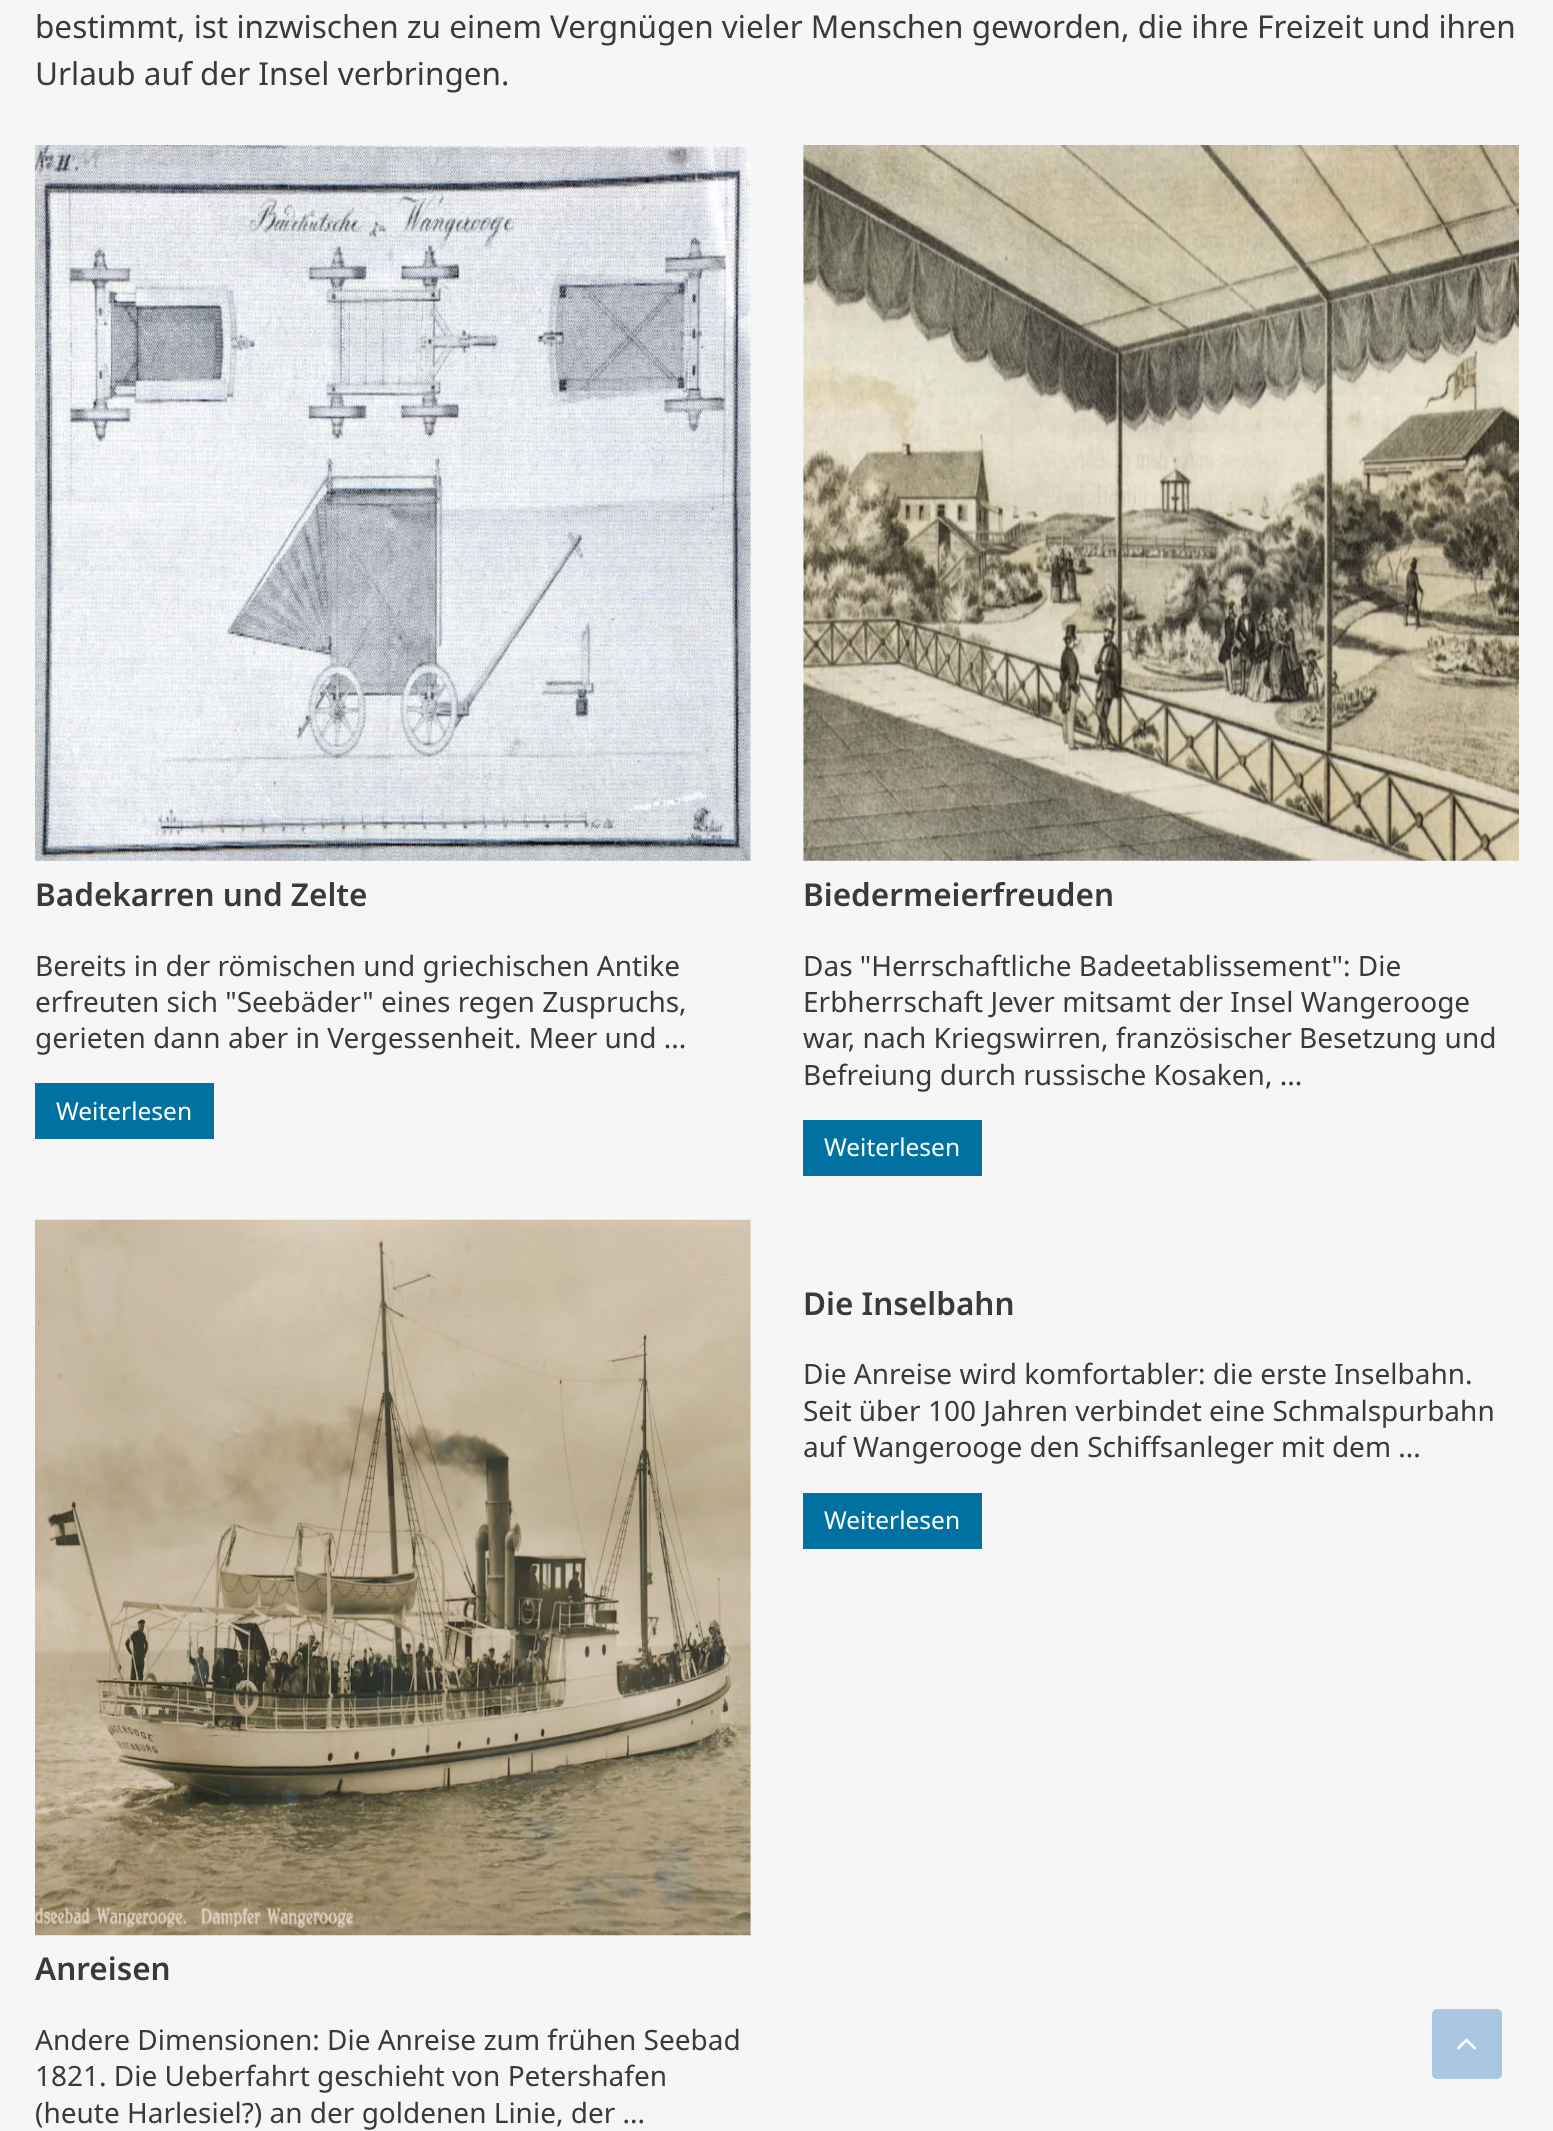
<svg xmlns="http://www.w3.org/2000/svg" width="1553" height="2131">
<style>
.a{font:31.5px Noto Sans;fill:#3a3a3a}
.b{font:600 31.5px Noto Sans;fill:#3a3a3a}
.c{font:28px Noto Sans;fill:#3a3a3a}
.d{font:24.5px Noto Sans;fill:#fff}
</style>
<rect width="100%" height="100%" fill="#f6f6f6"/>
<image href="1.png" x="35" y="145" width="716" height="716"/>
<path fill="#0071a0" d="M35 1083h179v56H35z"/>
<image href="2.png" x="803" y="145" width="716" height="716"/>
<path fill="#0071a0" d="M803 1120h179v56H803z"/>
<path fill="#0071a0" d="M803 1493h179v56H803z"/>
<image href="3.png" x="35" y="1219" width="716" height="717"/>
<rect fill="#a9c7e2" x="1432" y="2009" width="70" height="70" rx="5"/>
<image href="4.png" x="1456" y="2038" width="20" height="12"/>
<text class="a" x="35" y="38">bestimmt, ist inzwischen zu einem Vergnügen vieler Menschen geworden, die ihre Freizeit und ihren</text>
<text class="a" x="35" y="85">Urlaub auf der Insel verbringen.</text>
<text class="b" x="35" y="906">Badekarren und Zelte</text>
<text class="c" x="35" y="976">Bereits in der römischen und griechischen Antike</text>
<text class="c" x="35" y="1012">erfreuten sich "Seebäder" eines regen Zuspruchs,</text>
<text class="c" x="35" y="1048">gerieten dann aber in Vergessenheit. Meer und ...</text>
<text class="d" x="56" y="1120">Weiterlesen</text>
<text class="b" x="803" y="906">Biedermeierfreuden</text>
<text class="c" x="803" y="976">Das "Herrschaftliche Badeetablissement": Die</text>
<text class="c" x="803" y="1012">Erbherrschaft Jever mitsamt der Insel Wangerooge</text>
<text class="c" x="803" y="1048">war, nach Kriegswirren, französischer Besetzung und</text>
<text class="c" x="803" y="1085">Befreiung durch russische Kosaken, ...</text>
<text class="d" x="824" y="1156">Weiterlesen</text>
<text class="b" x="803" y="1315">Die Inselbahn</text>
<text class="c" x="803" y="1384">Die Anreise wird komfortabler: die erste Inselbahn.</text>
<text class="c" x="803" y="1421">Seit über 100 Jahren verbindet eine Schmalspurbahn</text>
<text class="c" x="803" y="1457">auf Wangerooge den Schiffsanleger mit dem ...</text>
<text class="d" x="824" y="1529">Weiterlesen</text>
<text class="b" x="35" y="1980">Anreisen</text>
<text class="c" x="35" y="2050">Andere Dimensionen: Die Anreise zum frühen Seebad</text>
<text class="c" x="35" y="2086">1821. Die Ueberfahrt geschieht von Petershafen</text>
<text class="c" x="35" y="2123">(heute Harlesiel?) an der goldenen Linie, der ...</text>
</svg>
